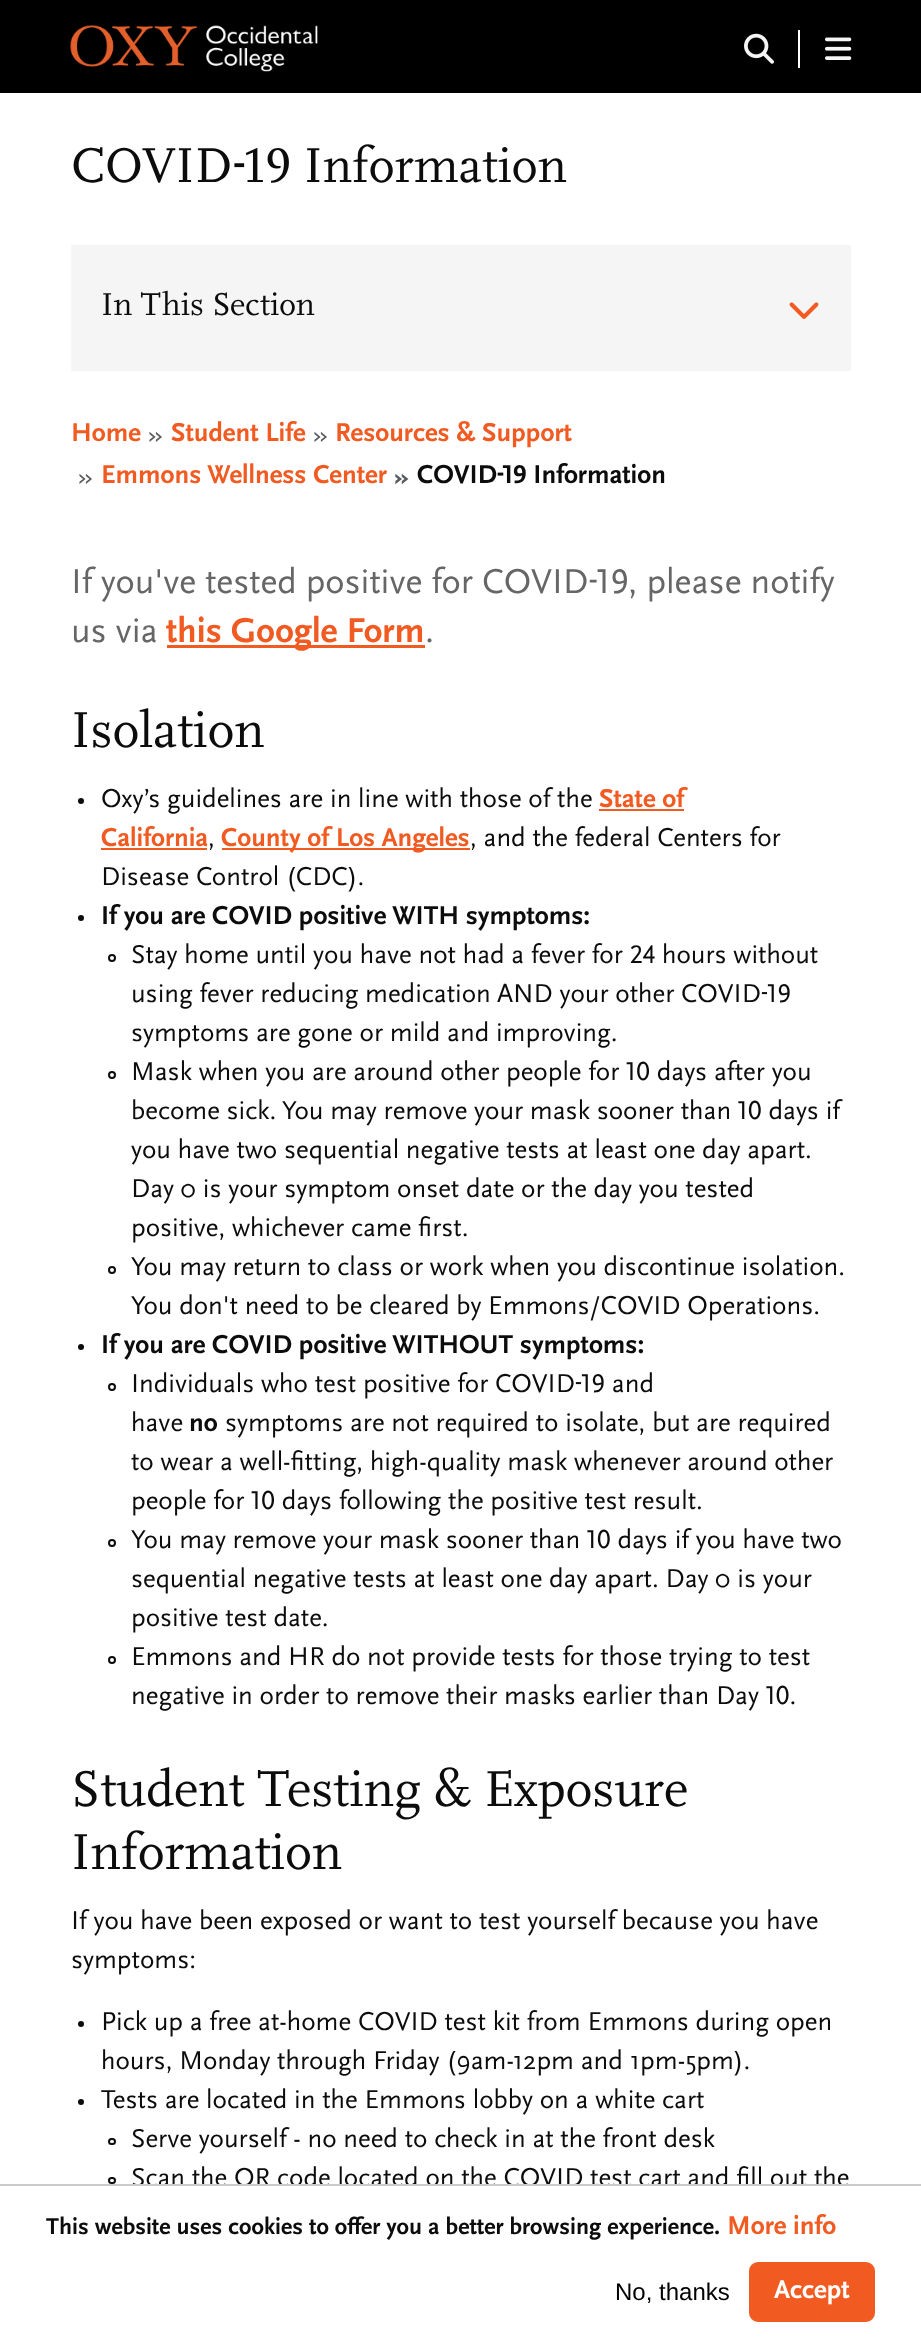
<svg xmlns="http://www.w3.org/2000/svg" width="921" height="2340">
<style>
.a{font:51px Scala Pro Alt;fill:#0c0c0c}
.b{font:33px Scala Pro;fill:#0c0c0c}
.c{font:bold 27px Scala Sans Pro;fill:#f15b22}
.d{font:27px Scala Sans Pro;fill:#595c5f}
.e{font:bold 27px Scala Sans Pro;fill:#595c5f}
.f{font:bold 27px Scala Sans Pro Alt;fill:#0c0c0c}
.g{font:36px Scala Sans Pro Alt;fill:#666}
.h{font:36px Scala Sans Pro;fill:#666}
.i{font:bold 36px Scala Sans Pro;fill:#f15b22}
.j{font:52.5px Scala Pro;fill:#0c0c0c}
.k{font:27px Scala Sans Pro;fill:#0c0c0c}
.l{font:bold 27px Scala Sans Pro;fill:#0c0c0c}
.m{font:27px Scala Sans Pro Alt;fill:#0c0c0c}
.n{font:bold 24px Scala Sans Pro;fill:#0c0c0c}
.o{font:24px Liberation Sans;fill:#000}
.p{font:bold 27px Scala Sans Pro;fill:#fff}
</style>
<rect width="100%" height="100%" fill="#fff"/>
<path fill="#000" d="M0 0h921v93H0z"/>
<image href="1.png" x="70" y="25" width="248" height="47"/>
<image href="2.png" x="744" y="33" width="30" height="31"/>
<path fill="#fff" d="M798 30h2v38H798z"/>
<image href="3.png" x="825" y="37" width="27" height="23"/>
<path fill="#f5f5f5" d="M71 245h780v126H71z"/>
<image href="4.png" x="789" y="302" width="30" height="17"/>
<path fill="#f15b22" d="M167 645h258v3H167z"/>
<circle fill="#0c0c0c" cx="81" cy="801" r="3"/>
<path fill="#f15b22" d="M599 809h85v2H599z"/>
<path fill="#f15b22" d="M101 848h106v2H101z"/>
<path fill="#f15b22" d="M222 848h248v2H222z"/>
<circle fill="#0c0c0c" cx="81" cy="918" r="3"/>
<circle fill="none" stroke="#0c0c0c" stroke-width="2" cx="112" cy="958" r="3"/>
<circle fill="none" stroke="#0c0c0c" stroke-width="2" cx="112" cy="1075" r="3"/>
<circle fill="none" stroke="#0c0c0c" stroke-width="2" cx="112" cy="1270" r="3"/>
<circle fill="#0c0c0c" cx="81" cy="1347" r="3"/>
<circle fill="none" stroke="#0c0c0c" stroke-width="2" cx="112" cy="1387" r="3"/>
<circle fill="none" stroke="#0c0c0c" stroke-width="2" cx="112" cy="1543" r="3"/>
<circle fill="none" stroke="#0c0c0c" stroke-width="2" cx="112" cy="1660" r="3"/>
<circle fill="#0c0c0c" cx="81" cy="2024" r="3"/>
<circle fill="#0c0c0c" cx="81" cy="2102" r="3"/>
<rect fill="none" stroke="#0c0c0c" stroke-width="2" x="109" y="2139" width="6" height="5" rx="2.5"/>
<rect fill="none" stroke="#0c0c0c" stroke-width="2" x="109" y="2178" width="6" height="5" rx="2.5"/>
<rect fill="#f15b22" stroke="#f15b22" stroke-width="2" x="750" y="2263" width="124" height="58" rx="8"/>
<text class="a" x="71" y="182">COVID-19 Information</text>
<text class="b" x="101" y="315">In This Section</text>
<text class="c" x="71" y="441">Home</text>
<text class="d" x="148" y="443">»</text>
<text class="c" x="171" y="441">Student Life</text>
<text class="d" x="313" y="443">»</text>
<text class="c" x="335" y="441">Resources &amp; Support</text>
<text class="d" x="78" y="485">»</text>
<text class="c" x="101" y="483">Emmons Wellness Center</text>
<text class="e" x="394" y="485">»</text>
<text class="f" x="417" y="483">COVID-19 Information</text>
<text class="g" x="71" y="593">If you've tested positive for COVID-19, please notify</text>
<text class="h" x="71" y="642">us via</text>
<text class="i" x="166" y="642">this Google Form</text>
<text class="h" x="425" y="642">.</text>
<text class="j" x="71" y="747">Isolation</text>
<text class="k" x="101" y="807">Oxy’s guidelines are in line with those of the</text>
<text class="c" x="599" y="807">State of</text>
<text class="c" x="101" y="846">California</text>
<text class="k" x="208" y="846">,</text>
<text class="c" x="221" y="846">County of Los Angeles</text>
<text class="k" x="470" y="846">, and the federal Centers for</text>
<text class="k" x="101" y="885">Disease Control (CDC).</text>
<text class="l" x="101" y="924">If you are COVID positive WITH symptoms:</text>
<text class="m" x="131" y="963">Stay home until you have not had a fever for 24 hours without</text>
<text class="m" x="131" y="1002">using fever reducing medication AND your other COVID-19</text>
<text class="k" x="131" y="1041">symptoms are gone or mild and improving.</text>
<text class="m" x="131" y="1080">Mask when you are around other people for 10 days after you</text>
<text class="m" x="131" y="1119">become sick. You may remove your mask sooner than 10 days if</text>
<text class="k" x="131" y="1158">you have two sequential negative tests at least one day apart.</text>
<text class="k" x="131" y="1197">Day 0 is your symptom onset date or the day you tested</text>
<text class="k" x="131" y="1236">positive, whichever came first.</text>
<text class="k" x="131" y="1275">You may return to class or work when you discontinue isolation.</text>
<text class="k" x="131" y="1314">You don't need to be cleared by Emmons/COVID Operations.</text>
<text class="l" x="101" y="1353">If you are COVID positive WITHOUT symptoms:</text>
<text class="m" x="131" y="1392">Individuals who test positive for COVID-19 and</text>
<text class="k" x="131" y="1431">have</text>
<text class="l" x="189" y="1431">no</text>
<text class="k" x="225" y="1431">symptoms are not required to isolate, but are required</text>
<text class="k" x="131" y="1470">to wear a well-fitting, high-quality mask whenever around other</text>
<text class="m" x="131" y="1509">people for 10 days following the positive test result.</text>
<text class="m" x="131" y="1548">You may remove your mask sooner than 10 days if you have two</text>
<text class="k" x="131" y="1587">sequential negative tests at least one day apart. Day 0 is your</text>
<text class="k" x="131" y="1626">positive test date.</text>
<text class="k" x="131" y="1665">Emmons and HR do not provide tests for those trying to test</text>
<text class="m" x="131" y="1704">negative in order to remove their masks earlier than Day 10.</text>
<text class="j" x="71" y="1806">Student Testing &amp; Exposure</text>
<text class="j" x="71" y="1869">Information</text>
<text class="k" x="71" y="1929">If you have been exposed or want to test yourself because you have</text>
<text class="k" x="71" y="1968">symptoms:</text>
<text class="k" x="101" y="2030">Pick up a free at-home COVID test kit from Emmons during open</text>
<text class="k" x="101" y="2069">hours, Monday through Friday (9am-12pm and 1pm-5pm).</text>
<text class="k" x="101" y="2108">Tests are located in the Emmons lobby on a white cart</text>
<text class="k" x="131" y="2147">Serve yourself - no need to check in at the front desk</text>
<text class="k" x="131" y="2186">Scan the QR code located on the COVID test cart and fill out the</text>
<path fill="#fff" d="M135 2186h711v7H135z"/>
<path fill="#ccc" d="M0 2184h921v2H0z"/>
<text class="n" x="46" y="2234">This website uses cookies to offer you a better browsing experience.</text>
<text class="c" x="727" y="2234">More info</text>
<text class="o" x="615" y="2300">No, thanks</text>
<text class="p" x="774" y="2298">Accept</text>
</svg>
